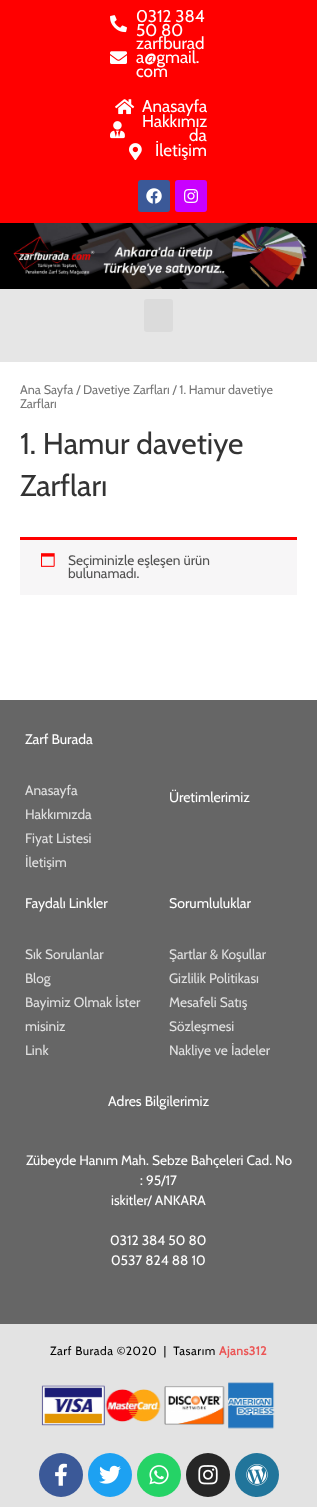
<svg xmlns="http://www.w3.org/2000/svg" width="317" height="1507">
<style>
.a{font:17px Cabin;fill:#fff}
.b{font:12.6px Cabin;fill:#777}
.c{font:30px Cabin;fill:#333}
.d{font:13.7px Cabin;fill:#515151}
.e{font:14px Cabin;fill:#fff}
.f{font:13.7px Cabin;fill:#e0e0e0}
.g{font:13.7px Cabin;fill:#fff}
.h{font:12px Cabin;letter-spacing:0.5px;fill:#000}
.i{font:bold 12px Cabin;letter-spacing:0.5px;fill:#eb5656}
</style>
<defs>
<clipPath id="clip1"><path d="M110 10h97v68H110z"/></clipPath>
</defs>
<rect width="100%" height="100%" fill="#fff"/>
<path fill="#f00" d="M0 0h317v223H0z"/>
<image href="1.png" x="110" y="15" width="17" height="18"/>
<image href="2.png" x="110" y="51" width="17" height="13"/>
<image href="3.png" x="115" y="99" width="20" height="16"/>
<image href="4.png" x="110" y="121" width="15" height="18"/>
<image href="5.png" x="129" y="143" width="13" height="17"/>
<rect fill="#3b5998" x="138" y="180" width="32" height="32" rx="3"/>
<image href="6.png" x="146" y="188" width="16" height="16"/>
<rect fill="#c900ff" x="175" y="180" width="32" height="32" rx="3"/>
<image href="7.png" x="184" y="189" width="14" height="14"/>
<image href="8.png" x="0" y="223" width="317" height="66"/>
<path fill="#e6e6e6" d="M0 289h317v73H0z"/>
<rect fill="#dbdbdb" x="144" y="299" width="29" height="33" rx="3"/>
<path fill="#f7f6f7" d="M20 540h277v55H20z"/>
<path fill="#f00" d="M20 537h277v3H20z"/>
<image href="9.png" x="41" y="553" width="14" height="14"/>
<path fill="#666" d="M0 700h317v624H0z"/>
<path fill="#e3e3e3" d="M0 1324h317v183H0z"/>
<image href="10.png" x="41" y="1382" width="234" height="47"/>
<circle fill="#3b5998" cx="61" cy="1475" r="22"/>
<image href="11.png" x="55" y="1463" width="12" height="23"/>
<circle fill="#1da1f2" cx="110" cy="1475" r="22"/>
<image href="12.png" x="99" y="1465" width="22" height="19"/>
<circle fill="#25d366" cx="159" cy="1475" r="22"/>
<image href="13.png" x="149" y="1465" width="20" height="20"/>
<circle fill="#262626" cx="208" cy="1475" r="22"/>
<image href="14.png" x="198" y="1465" width="20" height="20"/>
<circle fill="#21759b" cx="257" cy="1475" r="22"/>
<image href="15.png" x="246" y="1464" width="22" height="22"/>
<g clip-path="url(#clip1)">
<text class="a" x="136" y="22">0312 384</text>
</g>
<text class="a" x="136" y="36">50 80</text>
<text class="a" x="136" y="49">zarfburad</text>
<text class="a" x="136" y="63">a@gmail.</text>
<text class="a" x="136" y="77">com</text>
<text class="a" x="142" y="112">Anasayfa</text>
<text class="a" x="142" y="127">Hakkımız</text>
<text class="a" x="189" y="141">da</text>
<text class="a" x="155" y="156">İletişim</text>
<text class="b" x="20" y="394">Ana Sayfa / Davetiye Zarfları / 1. Hamur davetiye</text>
<text class="b" x="20" y="408">Zarfları</text>
<text class="c" x="20" y="454">1. Hamur davetiye</text>
<text class="c" x="20" y="496">Zarfları</text>
<text class="d" x="68" y="565">Seçiminizle eşleşen ürün</text>
<text class="d" x="68" y="578">bulunamadı.</text>
<text class="e" x="25" y="744">Zarf Burada</text>
<text class="f" x="25" y="795">Anasayfa</text>
<text class="f" x="25" y="819">Hakkımızda</text>
<text class="f" x="25" y="843">Fiyat Listesi</text>
<text class="f" x="25" y="867">İletişim</text>
<text class="e" x="169" y="802">Üretimlerimiz</text>
<text class="e" x="25" y="908">Faydalı Linkler</text>
<text class="f" x="25" y="959">Sık Sorulanlar</text>
<text class="f" x="25" y="983">Blog</text>
<text class="f" x="25" y="1007">Bayimiz Olmak İster</text>
<text class="f" x="25" y="1031">misiniz</text>
<text class="f" x="25" y="1055">Link</text>
<text class="e" x="169" y="908">Sorumluluklar</text>
<text class="f" x="169" y="959">Şartlar &amp; Koşullar</text>
<text class="f" x="169" y="983">Gizlilik Politikası</text>
<text class="f" x="169" y="1007">Mesafeli Satış</text>
<text class="f" x="169" y="1031">Sözleşmesi</text>
<text class="f" x="169" y="1055">Nakliye ve İadeler</text>
<text class="e" x="108" y="1106">Adres Bilgilerimiz</text>
<text class="g" x="26" y="1165">Zübeyde Hanım Mah. Sebze Bahçeleri Cad. No</text>
<text class="g" x="140" y="1185">: 95/17</text>
<text class="g" x="111" y="1205">iskitler/ ANKARA</text>
<text class="g" x="110" y="1245">0312 384 50 80</text>
<text class="g" x="111" y="1265">0537 824 88 10</text>
<text class="h" xml:space="preserve" x="50" y="1355">Zarf Burada ©2020  |  Tasarım</text>
<text class="i" x="219" y="1355">Ajans312</text>
</svg>
